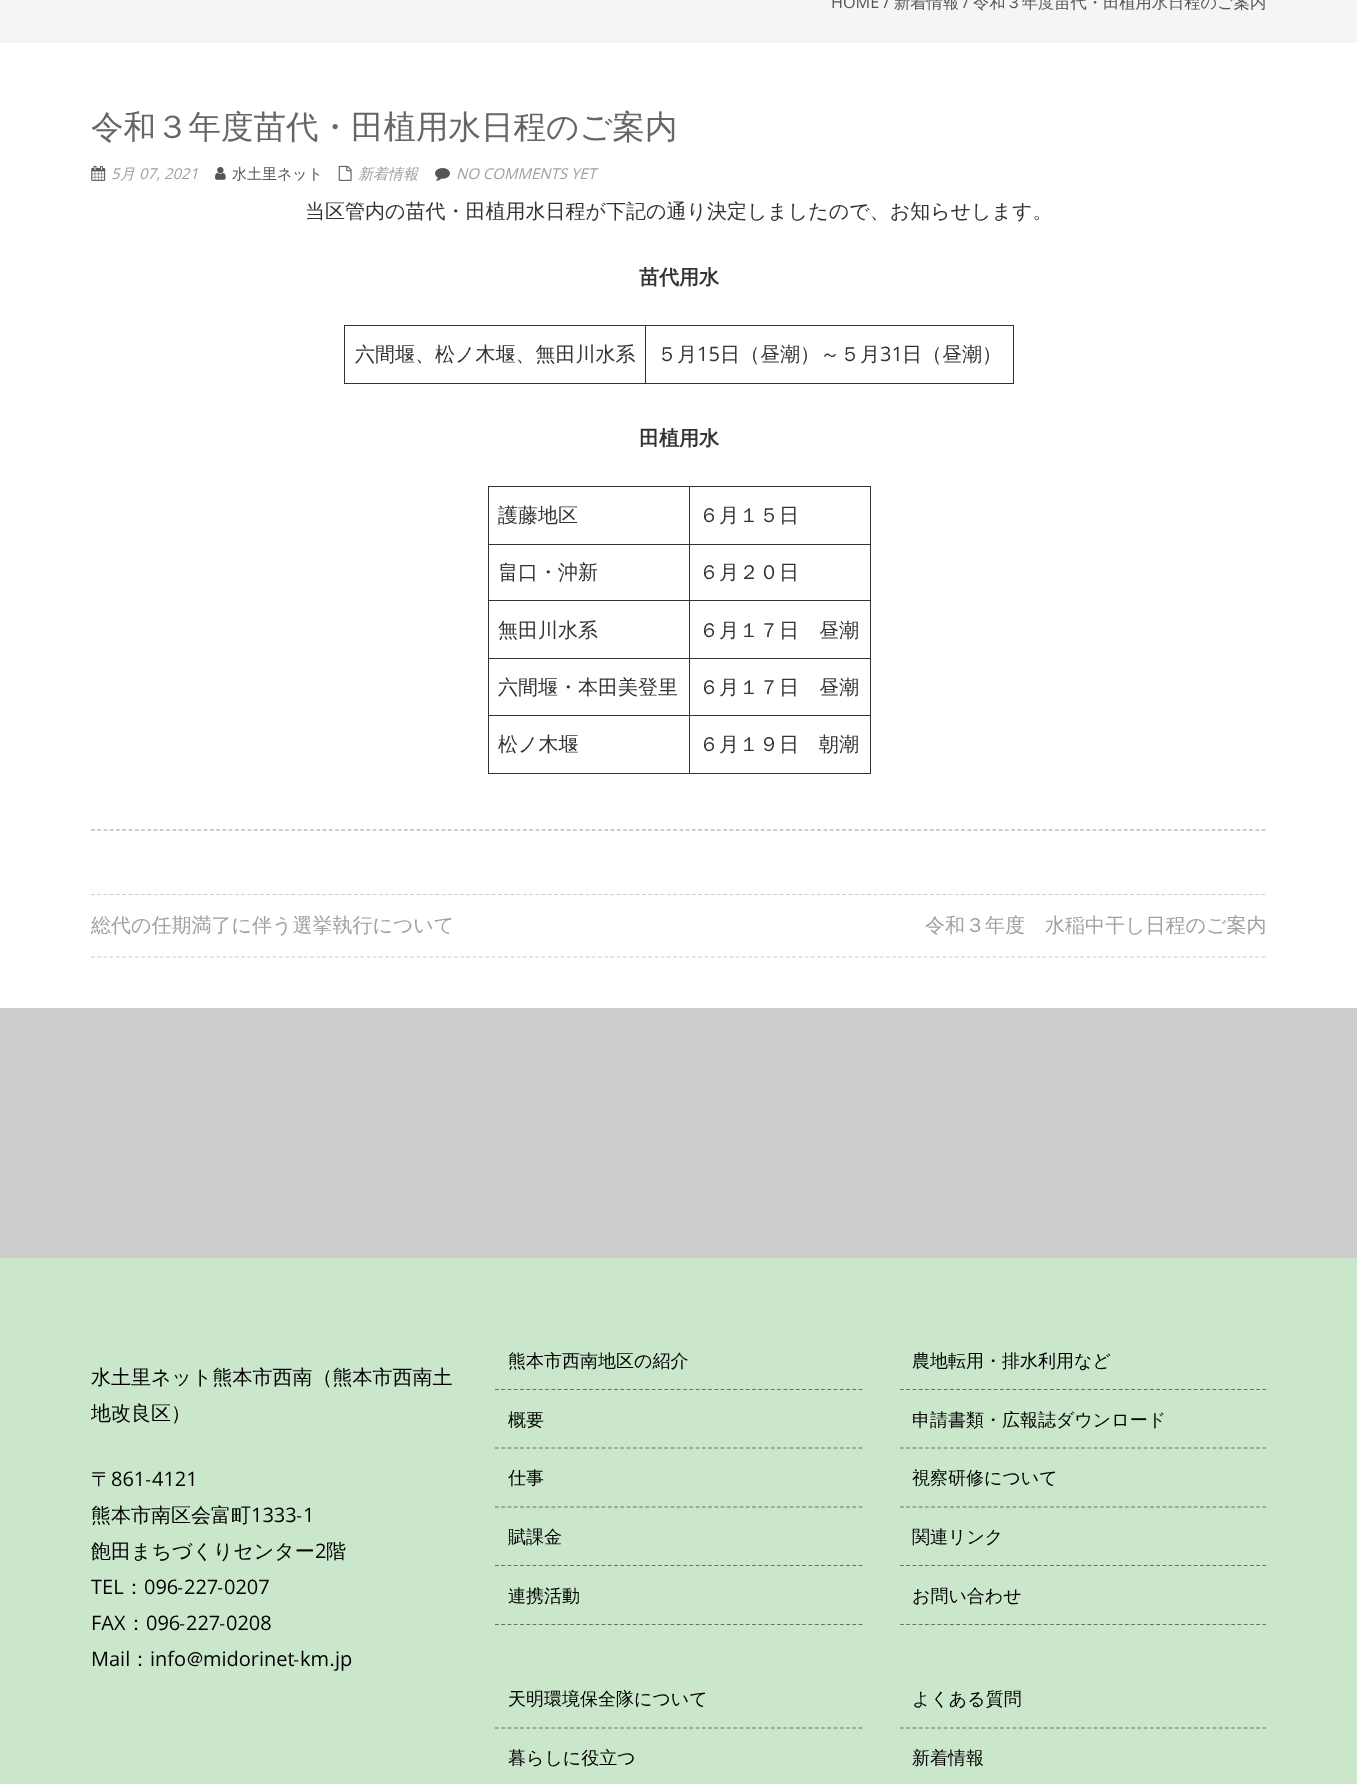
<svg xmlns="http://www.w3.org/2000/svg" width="1357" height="1784">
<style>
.a{font:16.25px Open Sans;fill:#555}
.b{font:500 16.25px WenQuanYi Zen Hei;fill:#555}
.c{font:500 32.5px WenQuanYi Zen Hei;fill:#666}
.d{font:italic 15px Open Sans;fill:#a0a0a0}
.e{font:italic 500 15px WenQuanYi Zen Hei;fill:#a0a0a0}
.f{font:500 15px WenQuanYi Zen Hei;fill:#555}
.g{font:500 20px WenQuanYi Zen Hei;fill:#333}
.h{font:bold 20px WenQuanYi Zen Hei;fill:#333}
.i{font:20px Open Sans;fill:#333}
.j{font:500 20px WenQuanYi Zen Hei;fill:#a0a0a0}
.k{font:500 20px WenQuanYi Zen Hei;fill:#000}
.l{font:20px Open Sans;fill:#000}
.m{font:500 18px WenQuanYi Zen Hei;fill:#000}
</style>
<defs>
<clipPath id="clip1"><path d="M495 1333h368v292H495z"/></clipPath>
<clipPath id="clip2"><path d="M900 1333h366v292H900z"/></clipPath>
</defs>
<rect width="100%" height="100%" fill="#fff"/>
<path fill="#f5f5f5" d="M0 0h1357v43H0z"/>
<image href="1.png" x="91" y="165" width="15" height="16"/>
<image href="2.png" x="215" y="167" width="11" height="13"/>
<image href="3.png" x="338" y="165" width="14" height="16"/>
<image href="4.png" x="435" y="168" width="15" height="13"/>
<path fill="#333" d="M645 325h369v1H645z"/>
<path fill="#333" d="M1013 325h1v59H1013z"/>
<path fill="#333" d="M645 383h369v1H645z"/>
<path fill="#333" d="M645 325h1v59H645z"/>
<path fill="#333" d="M344 325h302v1H344z"/>
<path fill="#333" d="M344 383h302v1H344z"/>
<path fill="#333" d="M344 325h1v59H344z"/>
<path fill="#333" d="M689 486h182v1H689z"/>
<path fill="#333" d="M689 544h182v1H689z"/>
<path fill="#333" d="M689 600h182v1H689z"/>
<path fill="#333" d="M689 658h182v1H689z"/>
<path fill="#333" d="M689 715h182v1H689z"/>
<path fill="#333" d="M870 715h1v59H870z"/>
<path fill="#333" d="M689 773h182v1H689z"/>
<path fill="#333" d="M689 715h1v59H689z"/>
<path fill="#333" d="M488 715h202v1H488z"/>
<path fill="#333" d="M689 658h1v58H689z"/>
<path fill="#333" d="M488 658h202v1H488z"/>
<path fill="#333" d="M689 600h1v59H689z"/>
<path fill="#333" d="M488 600h202v1H488z"/>
<path fill="#333" d="M689 544h1v57H689z"/>
<path fill="#333" d="M488 544h202v1H488z"/>
<path fill="#333" d="M689 486h1v59H689z"/>
<path fill="#333" d="M488 486h202v1H488z"/>
<path fill="#333" d="M488 773h202v1H488z"/>
<path fill="#333" d="M488 715h1v59H488z"/>
<path fill="#333" d="M488 658h1v58H488z"/>
<path fill="#333" d="M488 600h1v59H488z"/>
<path fill="#333" d="M488 544h1v57H488z"/>
<path fill="#333" d="M488 486h1v59H488z"/>
<path fill="#333" d="M870 658h1v58H870z"/>
<path fill="#333" d="M870 600h1v59H870z"/>
<path fill="#333" d="M870 544h1v57H870z"/>
<path fill="#333" d="M870 486h1v59H870z"/>
<path fill="none" stroke="#ccc" stroke-width="1.2" stroke-dasharray="3.75 2.51" d="M91 829.5h1175"/>
<path fill="none" stroke="#ccc" stroke-width="1.2" stroke-dasharray="3.75 2.51" d="M91 830.5h1175"/>
<path fill="none" stroke="#ccc" stroke-width="1.2" stroke-dasharray="3.75 2.51" d="M91 894.5h1175"/>
<path fill="none" stroke="#ccc" stroke-width="1.2" stroke-dasharray="3.75 2.51" d="M91 957h1175"/>
<path fill="#ccc" d="M0 1008h1357v250H0z"/>
<path fill="#cae7cc" d="M0 1258h1357v526H0z"/>
<path fill="none" stroke="#657466" stroke-width="1.2" stroke-dasharray="3.75 2.52" d="M495 1389.5h367.5"/>
<path fill="none" stroke="#657466" stroke-width="1.2" stroke-dasharray="3.75 2.52" d="M495 1448h367.5"/>
<path fill="none" stroke="#657466" stroke-width="1.2" stroke-dasharray="3.75 2.52" d="M495 1507h367.5"/>
<path fill="none" stroke="#657466" stroke-width="1.2" stroke-dasharray="3.75 2.52" d="M495 1565.5h367.5"/>
<g clip-path="url(#clip1)">
<path fill="none" stroke="#657466" stroke-width="1.2" stroke-dasharray="3.75 2.52" d="M495 1624.5h367.5"/>
</g>
<path fill="none" stroke="#657466" stroke-width="1.2" stroke-dasharray="3.75 2.52" d="M495 1728h367.5"/>
<path fill="none" stroke="#657466" stroke-width="1.2" stroke-dasharray="3.75 2.5" d="M900 1389.5h366"/>
<path fill="none" stroke="#657466" stroke-width="1.2" stroke-dasharray="3.75 2.5" d="M900 1448h366"/>
<path fill="none" stroke="#657466" stroke-width="1.2" stroke-dasharray="3.75 2.5" d="M900 1507h366"/>
<path fill="none" stroke="#657466" stroke-width="1.2" stroke-dasharray="3.75 2.5" d="M900 1565.5h366"/>
<g clip-path="url(#clip2)">
<path fill="none" stroke="#657466" stroke-width="1.2" stroke-dasharray="3.75 2.5" d="M900 1624.5h366"/>
</g>
<path fill="none" stroke="#657466" stroke-width="1.2" stroke-dasharray="3.75 2.5" d="M900 1728h366"/>
<text class="a" x="831" y="8">HOME /</text>
<text class="b" x="894" y="8">新着情報</text>
<text class="a" x="963" y="8">/</text>
<text class="b" x="973" y="8">令和３年度苗代・田植用水日程のご案内</text>
<text class="c" x="91" y="138">令和３年度苗代・田植用水日程のご案内</text>
<text class="d" x="111" y="179">5</text>
<text class="e" x="120" y="179">月</text>
<text class="d" x="139" y="179">07, 2021</text>
<text class="f" x="232" y="179">水土里ネット</text>
<text class="e" x="358" y="179">新着情報</text>
<text class="d" x="456" y="179">NO COMMENTS YET</text>
<text class="g" x="305" y="218">当区管内の苗代・田植用水日程が下記の通り決定しましたので、お知らせします。</text>
<text class="h" x="639" y="284">苗代用水</text>
<text class="g" x="355" y="361">六間堰、松ノ木堰、無田川水系</text>
<text class="g" x="657" y="361">５月</text>
<text class="i" x="697" y="361">15</text>
<text class="g" x="720" y="361">日（昼潮）～５月</text>
<text class="i" x="880" y="361">31</text>
<text class="g" x="902" y="361">日（昼潮）</text>
<text class="h" x="639" y="445">田植用水</text>
<text class="g" x="498" y="522">護藤地区</text>
<text class="g" x="699" y="522">６月１５日</text>
<text class="g" x="498" y="579">畠口・沖新</text>
<text class="g" x="699" y="579">６月２０日</text>
<text class="g" x="498" y="637">無田川水系</text>
<text class="g" x="699" y="637">６月１７日　昼潮</text>
<text class="g" x="498" y="694">六間堰・本田美登里</text>
<text class="g" x="699" y="694">６月１７日　昼潮</text>
<text class="g" x="498" y="751">松ノ木堰</text>
<text class="g" x="699" y="751">６月１９日　朝潮</text>
<text class="j" x="91" y="932">総代の任期満了に伴う選挙執行について</text>
<text class="j" x="925" y="932">令和３年度　水稲中干し日程のご案内</text>
<text class="k" x="91" y="1384">水土里ネット熊本市西南（熊本市西南土</text>
<text class="k" x="91" y="1420">地改良区）</text>
<text class="k" x="91" y="1486">〒</text>
<text class="l" x="111" y="1486">861</text>
<text class="k" x="146" y="1486">-</text>
<text class="l" x="152" y="1486">4121</text>
<text class="k" x="91" y="1522">熊本市南区会富町</text>
<text class="l" x="251" y="1522">1333</text>
<text class="k" x="297" y="1522">-</text>
<text class="l" x="303" y="1522">1</text>
<text class="k" x="91" y="1558">飽田まちづくりセンター</text>
<text class="l" x="315" y="1558">2</text>
<text class="k" x="326" y="1558">階</text>
<text class="l" x="91" y="1594">TEL</text>
<text class="k" x="124" y="1594">：</text>
<text class="l" x="144" y="1594">096</text>
<text class="k" x="178" y="1594">-</text>
<text class="l" x="184" y="1594">227</text>
<text class="k" x="218" y="1594">-</text>
<text class="l" x="224" y="1594">0207</text>
<text class="l" x="91" y="1630">FAX</text>
<text class="k" x="126" y="1630">：</text>
<text class="l" x="146" y="1630">096</text>
<text class="k" x="180" y="1630">-</text>
<text class="l" x="186" y="1630">227</text>
<text class="k" x="220" y="1630">-</text>
<text class="l" x="226" y="1630">0208</text>
<text class="l" x="91" y="1666">Mail</text>
<text class="k" x="130" y="1666">：</text>
<text class="l" x="150" y="1666">info</text>
<text class="k" x="187" y="1666">@</text>
<text class="l" x="203" y="1666">midorinet</text>
<text class="k" x="294" y="1666">-</text>
<text class="l" x="300" y="1666">km</text>
<text class="l" x="335" y="1666">jp</text>
<text class="k" x="329" y="1666">.</text>
<text class="m" x="508" y="1367">熊本市西南地区の紹介</text>
<text class="m" x="508" y="1426">概要</text>
<text class="m" x="508" y="1484">仕事</text>
<text class="m" x="508" y="1543">賦課金</text>
<text class="m" x="508" y="1602">連携活動</text>
<text class="m" x="508" y="1705">天明環境保全隊について</text>
<text class="m" x="508" y="1764">暮らしに役立つ</text>
<text class="m" x="912" y="1367">農地転用・排水利用など</text>
<text class="m" x="912" y="1426">申請書類・広報誌ダウンロード</text>
<text class="m" x="912" y="1484">視察研修について</text>
<text class="m" x="912" y="1543">関連リンク</text>
<text class="m" x="912" y="1602">お問い合わせ</text>
<text class="m" x="912" y="1705">よくある質問</text>
<text class="m" x="912" y="1764">新着情報</text>
</svg>
